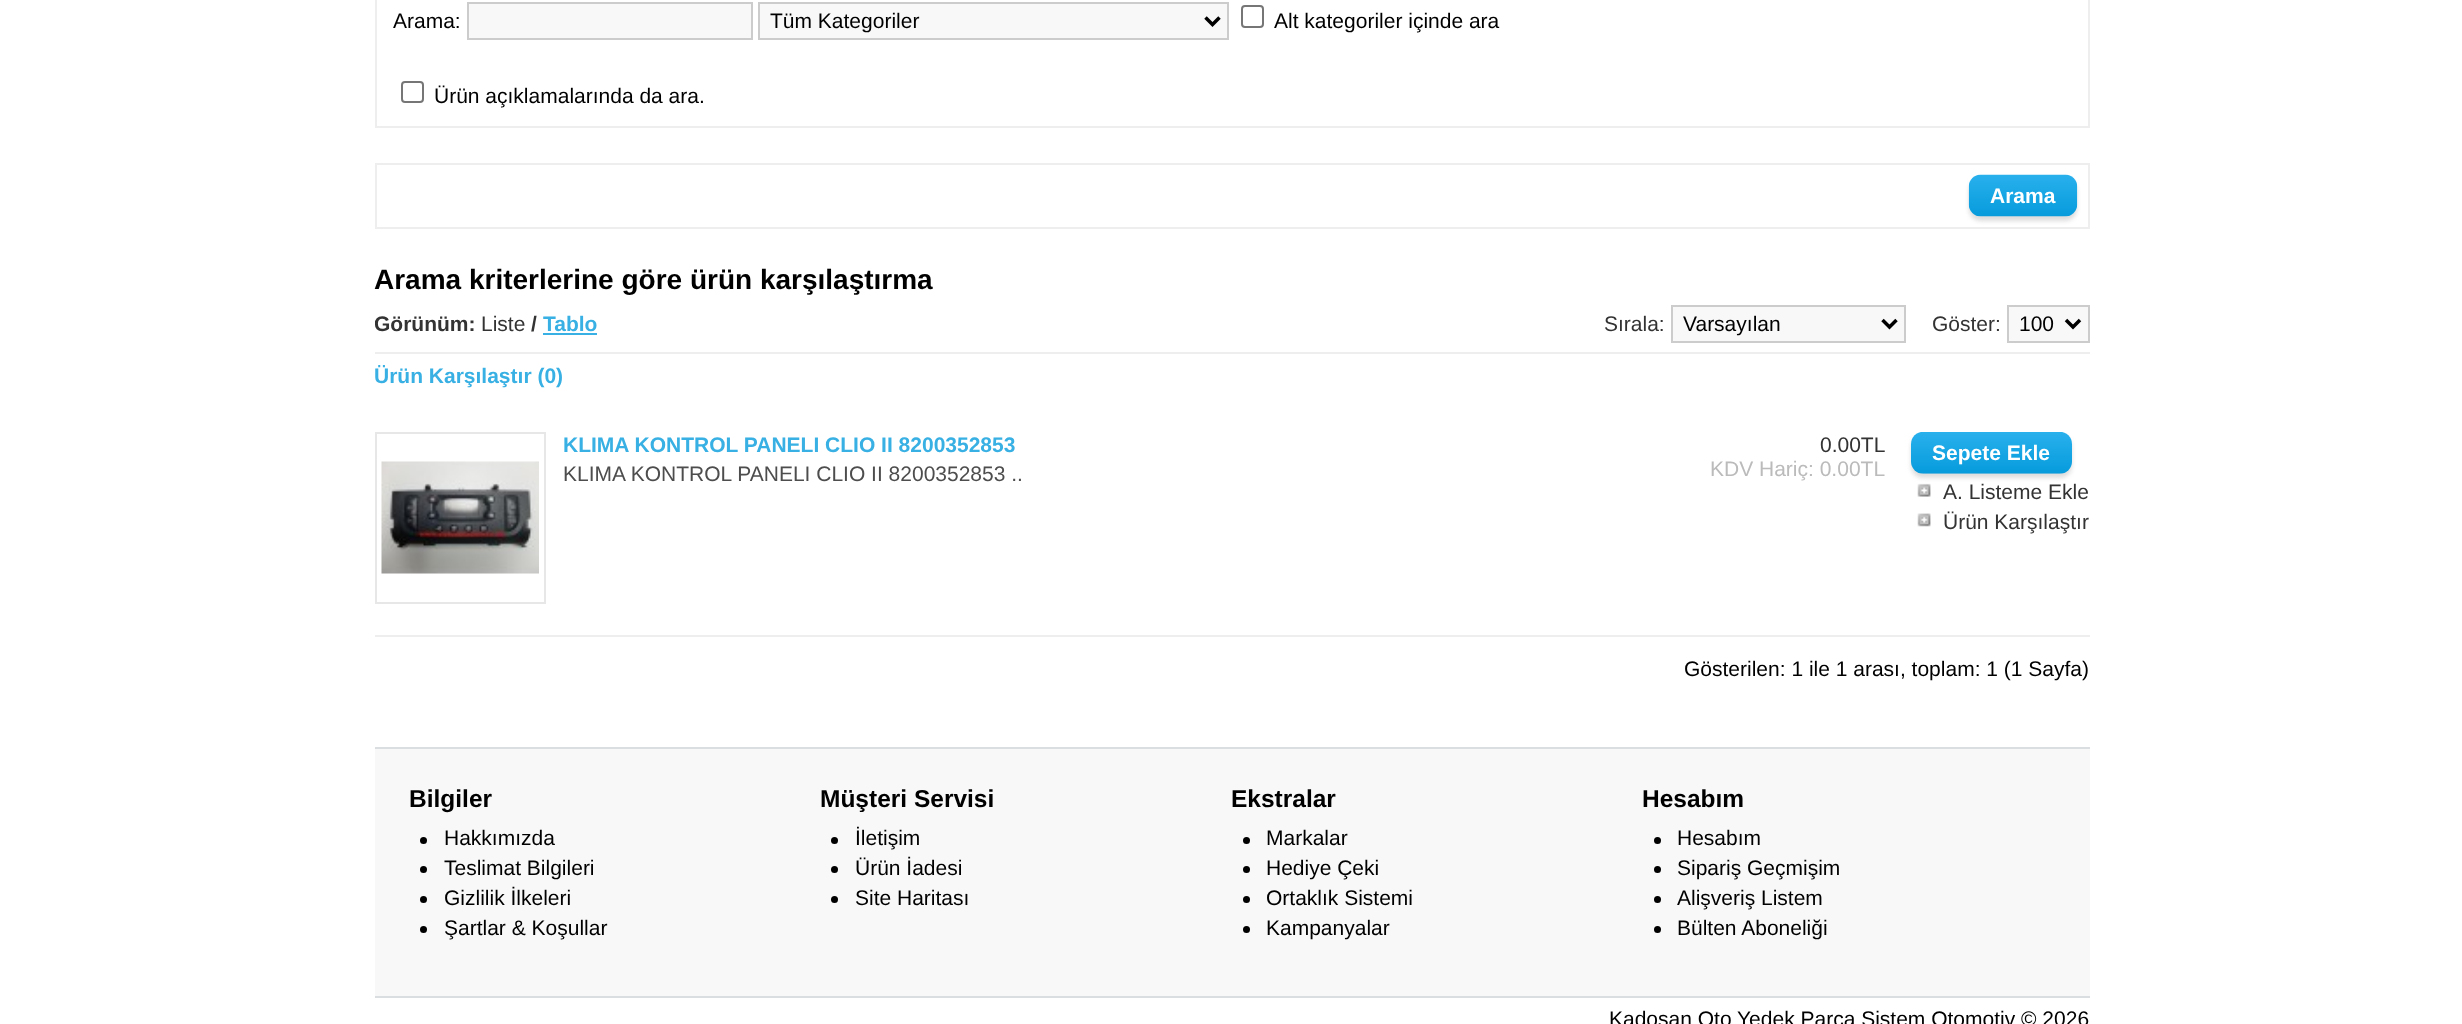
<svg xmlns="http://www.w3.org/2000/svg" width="2462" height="1024">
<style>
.a{font:21px Liberation Sans;fill:#000}
.b{font:bold 21px Liberation Sans;fill:#fff}
.c{font:bold 28px Liberation Sans;fill:#000}
.d{font:bold 21px Liberation Sans;fill:#333}
.e{font:21px Liberation Sans;fill:#333}
.f{font:bold 21px Liberation Sans;fill:#38b0e3}
.g{font:21px Liberation Sans;fill:#bbb}
.h{font:21px Liberation Sans;fill:#4d4d4d}
.i{font:bold 24.5px Liberation Sans;fill:#000}
</style>
<defs>
<clipPath id="clip1"><path d="M375 305h1715v47H375z"/></clipPath>
</defs>
<rect width="100%" height="100%" fill="#fff"/>
<path fill="none" stroke="#eee" stroke-width="2" d="M376 -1h1713v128H376z"/>
<path fill="#f8f8f8" stroke="#ccc" stroke-width="2" d="M468 3h284v36H468z"/>
<path fill="#f8f8f8" stroke="#ccc" stroke-width="2" d="M759 3h469v36H759z"/>
<path fill="none" stroke="#000" stroke-width="3.5" d="M1205.5 17.5l7 7l7-7"/>
<rect fill="none" stroke="#767676" stroke-width="2" x="1242" y="6" width="21" height="21" rx="3"/>
<rect fill="none" stroke="#767676" stroke-width="2" x="402" y="82" width="21" height="20" rx="3"/>
<path fill="none" stroke="#eee" stroke-width="2" d="M376 164h1713v64H376z"/>
<rect fill="#ddd" filter="blur(2px)" x="1969" y="179" width="108" height="42" rx="12"/>
<image href="1.png" x="1968" y="174" width="110" height="43"/>
<path fill="#eee" d="M375 352h1715v2H375z"/>
<path fill="#38b0e3" d="M543 333h54v2H543z"/>
<path fill="#f8f8f8" stroke="#ccc" stroke-width="2" d="M1672 306h233v36H1672z"/>
<path fill="none" stroke="#000" stroke-width="3.5" d="M1882.5 320l7 7l7-7"/>
<path fill="#f8f8f8" stroke="#ccc" stroke-width="2" d="M2008 306h81v36H2008z"/>
<path fill="none" stroke="#000" stroke-width="3.5" d="M2066 320l7 7l7-7"/>
<path fill="none" stroke="#e7e7e7" stroke-width="2" d="M376 433h169v170H376z"/>
<image href="2.png" x="381" y="461" width="158" height="113"/>
<image href="4.png" x="1917" y="483" width="14" height="14"/>
<rect fill="#ddd" filter="blur(2px)" x="1911" y="436" width="161" height="42" rx="12"/>
<image href="3.png" x="1911" y="432" width="161" height="42"/>
<image href="5.png" x="1917" y="513" width="14" height="14"/>
<path fill="#eee" d="M375 635h1715v2H375z"/>
<path fill="#f8f8f8" d="M375 749h1715v247H375z"/>
<path fill="#dbdee1" d="M375 747h1715v2H375z"/>
<path fill="#dbdee1" d="M375 996h1715v2H375z"/>
<circle fill="#000" cx="423.5" cy="840.5" r="3.5"/>
<circle fill="#000" cx="423.5" cy="869.5" r="3.5"/>
<circle fill="#000" cx="423.5" cy="899.5" r="3.5"/>
<circle fill="#000" cx="423.5" cy="929.5" r="3.5"/>
<circle fill="#000" cx="834.5" cy="840.5" r="3.5"/>
<circle fill="#000" cx="834.5" cy="869.5" r="3.5"/>
<circle fill="#000" cx="834.5" cy="899.5" r="3.5"/>
<circle fill="#000" cx="1246.5" cy="840.5" r="3.5"/>
<circle fill="#000" cx="1246.5" cy="869.5" r="3.5"/>
<circle fill="#000" cx="1246.5" cy="899.5" r="3.5"/>
<circle fill="#000" cx="1246.5" cy="929.5" r="3.5"/>
<circle fill="#000" cx="1657.5" cy="840.5" r="3.5"/>
<circle fill="#000" cx="1657.5" cy="869.5" r="3.5"/>
<circle fill="#000" cx="1657.5" cy="899.5" r="3.5"/>
<circle fill="#000" cx="1657.5" cy="929.5" r="3.5"/>
<text class="a" x="393" y="28">Arama:</text>
<text class="a" x="770" y="28">Tüm Kategoriler</text>
<text class="a" x="1274" y="28">Alt kategoriler içinde ara</text>
<text class="a" x="434" y="103">Ürün açıklamalarında da ara.</text>
<text class="b" x="1990" y="203">Arama</text>
<text class="c" x="374" y="289">Arama kriterlerine göre ürün karşılaştırma</text>
<g clip-path="url(#clip1)">
<text class="d" x="374" y="331">Görünüm:</text>
</g>
<text class="e" x="481" y="331">Liste</text>
<text class="d" x="531" y="331">/</text>
<text class="f" x="543" y="331">Tablo</text>
<text class="e" x="1604" y="331">Sırala:</text>
<text class="a" x="1683" y="331">Varsayılan</text>
<text class="e" x="1932" y="331">Göster:</text>
<text class="a" x="2019" y="331">100</text>
<text class="f" x="374" y="383">Ürün Karşılaştır (0)</text>
<text class="f" x="563" y="452">KLIMA KONTROL PANELI CLIO II 8200352853</text>
<text class="e" x="1820" y="452">0.00TL</text>
<text class="g" x="1710" y="476">KDV Hariç: 0.00TL</text>
<text class="h" x="563" y="481">KLIMA KONTROL PANELI CLIO II 8200352853 ..</text>
<text class="b" x="1932" y="460">Sepete Ekle</text>
<text class="e" x="1943" y="499">A. Listeme Ekle</text>
<text class="e" x="1943" y="529">Ürün Karşılaştır</text>
<text class="a" x="1684" y="676">Gösterilen: 1 ile 1 arası, toplam: 1 (1 Sayfa)</text>
<text class="i" x="409" y="807">Bilgiler</text>
<text class="a" x="444" y="845">Hakkımızda</text>
<text class="a" x="444" y="875">Teslimat Bilgileri</text>
<text class="a" x="444" y="905">Gizlilik İlkeleri</text>
<text class="a" x="444" y="935">Şartlar &amp; Koşullar</text>
<text class="i" x="820" y="807">Müşteri Servisi</text>
<text class="a" x="855" y="845">İletişim</text>
<text class="a" x="855" y="875">Ürün İadesi</text>
<text class="a" x="855" y="905">Site Haritası</text>
<text class="i" x="1231" y="807">Ekstralar</text>
<text class="a" x="1266" y="845">Markalar</text>
<text class="a" x="1266" y="875">Hediye Çeki</text>
<text class="a" x="1266" y="905">Ortaklık Sistemi</text>
<text class="a" x="1266" y="935">Kampanyalar</text>
<text class="i" x="1642" y="807">Hesabım</text>
<text class="a" x="1677" y="845">Hesabım</text>
<text class="a" x="1677" y="875">Sipariş Geçmişim</text>
<text class="a" x="1677" y="905">Alişveriş Listem</text>
<text class="a" x="1677" y="935">Bülten Aboneliği</text>
<text class="a" x="1609" y="1026">Kadosan Oto Yedek Parça Sistem Otomotiv © 2026</text>
</svg>
